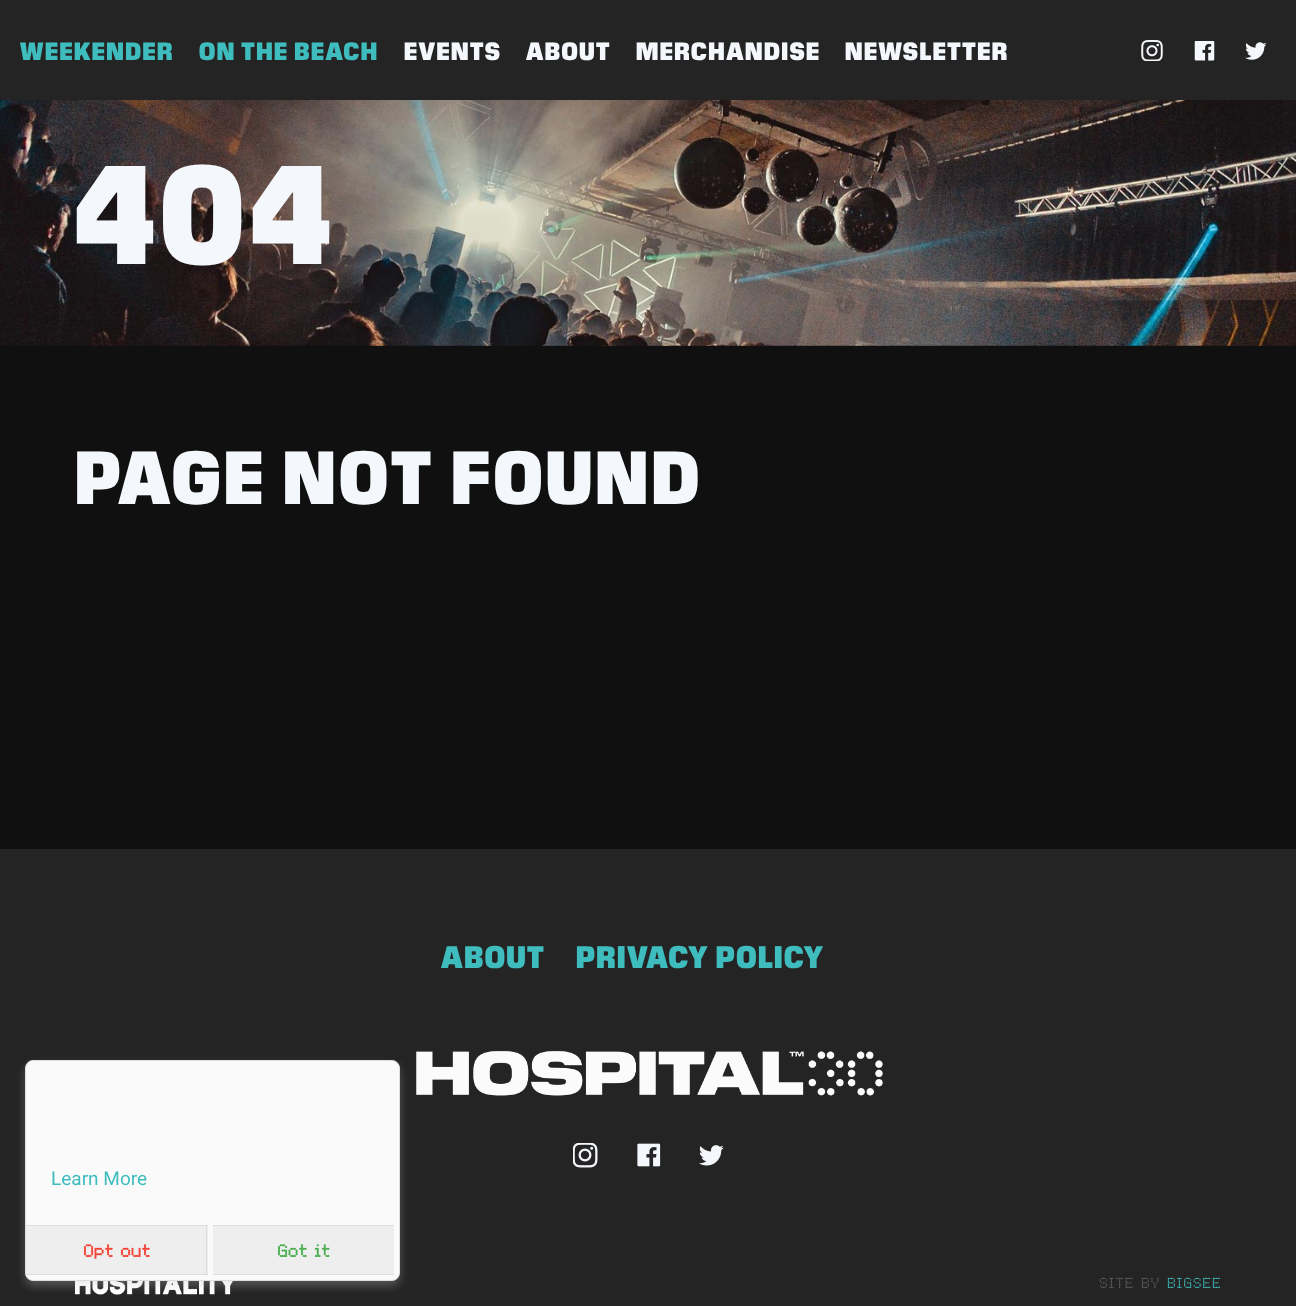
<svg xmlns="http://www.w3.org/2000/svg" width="1296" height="1306">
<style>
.a{font:900 25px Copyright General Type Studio;letter-spacing:1.5px;fill:#3fbdbe}
.b{font:900 25px Copyright General Type Studio;letter-spacing:1.5px;fill:#f4f8fc}
.c{font:900 140px Copyright General Type Studio;letter-spacing:7px;fill:#f4f8fc}
.d{font:900 75px Copyright General Type Studio;letter-spacing:3.75px;fill:#f4f8fc}
.e{font:900 31.25px Copyright General Type Studio;letter-spacing:1.5px;fill:#3fbdbe}
.f{font:15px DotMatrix;letter-spacing:0.75px;fill:#5e5f60}
.g{font:15px DotMatrix;letter-spacing:0.75px;fill:#3fbdbe}
.h{font:19px Roboto;fill:#3fbdbe}
.i{font:bold 18px DotMatrix;fill:#f44336}
.j{font:bold 18px DotMatrix;fill:#4caf50}
</style>
<rect width="100%" height="100%" fill="#101010"/>
<path fill="#242424" d="M0 0h1296v100H0z"/>
<image href="1.png" x="1141" y="40" width="22" height="21"/>
<image href="2.png" x="1194" y="41" width="21" height="20"/>
<image href="3.png" x="1245" y="42" width="21" height="18"/>
<image href="4.png" x="0" y="100" width="1296" height="246"/>
<path fill="#242424" d="M0 849h1296v457H0z"/>
<image href="5.png" x="416" y="1050" width="467" height="46"/>
<image href="6.png" x="573" y="1143" width="25" height="25"/>
<image href="7.png" x="637" y="1143" width="24" height="24"/>
<image href="8.png" x="699" y="1145" width="25" height="21"/>
<image href="9.png" x="75" y="1281" width="158" height="14"/>
<rect fill="#c7c7c74d" filter="blur(5px)" x="25" y="1065" width="375" height="221" rx="8"/>
<rect fill="#fafafa" stroke="#ddd" x="25.5" y="1060.5" width="374" height="220" rx="7.5"/>
<path fill="#eee" d="M26 1226h182v49H26z"/>
<path fill="#ddd" d="M26 1225h182v1H26z"/>
<path fill="#ddd" d="M206 1225h1v50H206z"/>
<path fill="#ddd" d="M26 1274h182v1H26z"/>
<path fill="#eee" d="M213 1226h181v48H213z"/>
<path fill="#ddd" d="M213 1225h181v1H213z"/>
<path fill="#ddd" d="M213 1274h181v1H213z"/>
<text class="a" x="20" y="60">WEEKENDER</text>
<text class="a" x="199" y="60">ON THE BEACH</text>
<text class="b" x="404" y="60">EVENTS</text>
<text class="b" x="526" y="60">ABOUT</text>
<text class="b" x="636" y="60">MERCHANDISE</text>
<text class="b" x="845" y="60">NEWSLETTER</text>
<text class="c" x="75" y="264">404</text>
<text class="d" x="75" y="504">PAGE NOT FOUND</text>
<text class="e" x="441" y="968">ABOUT</text>
<text class="e" x="576" y="968">PRIVACY POLICY</text>
<text class="f" x="1099" y="1288">SITE BY</text>
<text class="g" x="1167" y="1288">BIGSEE</text>
<text class="h" x="51" y="1185">Learn More</text>
<text class="i" x="83" y="1257">Opt out</text>
<text class="j" x="277" y="1257">Got it</text>
</svg>
